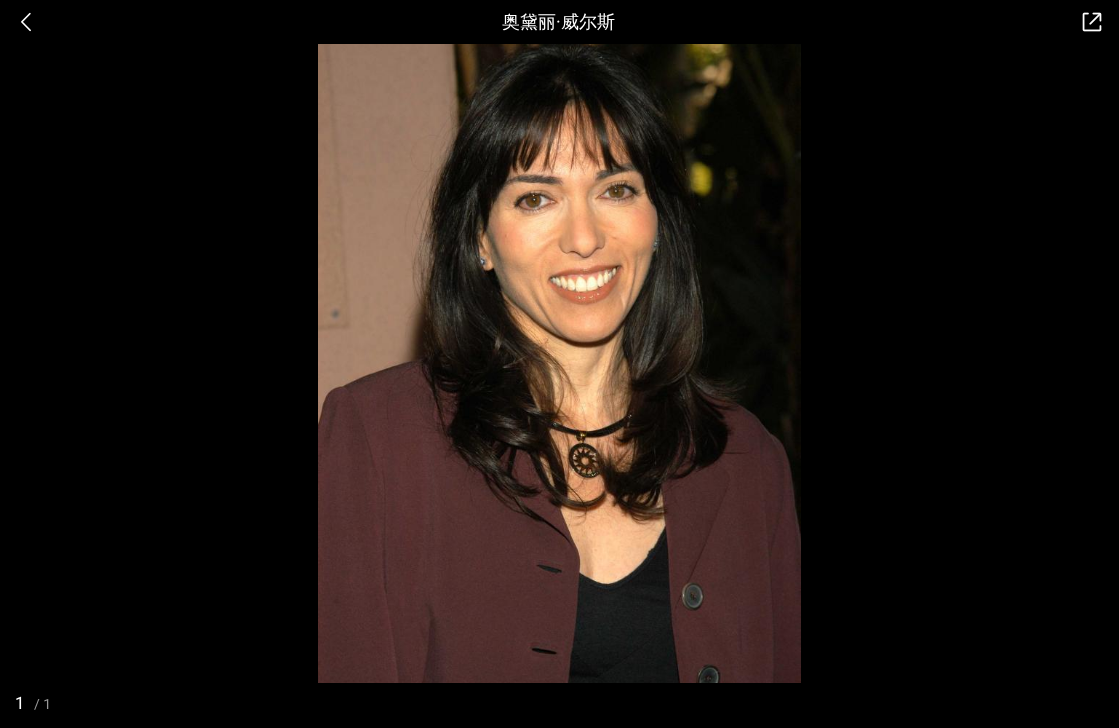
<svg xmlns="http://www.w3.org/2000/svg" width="1119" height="728">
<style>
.a{font:500 18px WenQuanYi Zen Hei;fill:#fff}
.b{font:18px Roboto;fill:#fff}
.c{font:17px Roboto;fill:#fff}
.d{font:14px Roboto;fill:#999}
</style>
<rect width="100%" height="100%" fill="#000"/>
<image href="1.png" x="21" y="12" width="10" height="20"/>
<image href="2.png" x="1082" y="12" width="20" height="20"/>
<image href="3.png" x="318" y="44" width="483" height="639"/>
<text class="a" x="502" y="28">奥黛丽</text>
<text class="b" x="556" y="28">·</text>
<text class="a" x="561" y="28">威尔斯</text>
<text class="c" x="15" y="709">1</text>
<text class="d" x="34" y="709">/ 1</text>
</svg>
